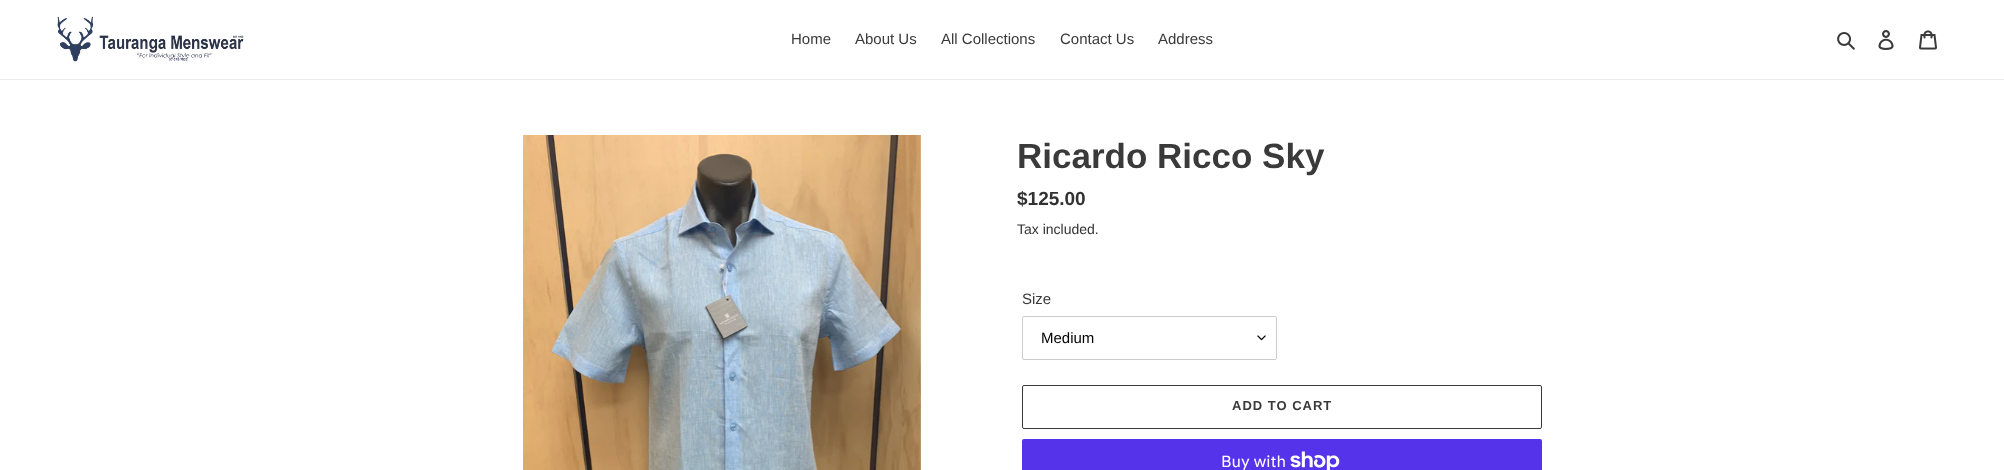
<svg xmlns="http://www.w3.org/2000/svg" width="2004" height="470">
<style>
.a{font:15px Liberation Sans;fill:#3a3a3a}
.b{font:bold 35px Liberation Sans;fill:#3a3a3a}
.c{font:bold 19px Liberation Sans;fill:#333232}
.d{font:14px Liberation Sans;fill:#333232}
.e{font:15px Liberation Sans;fill:#000}
.f{font:bold 13px Liberation Sans;letter-spacing:1px;fill:#3a3a3a}
.g{font:16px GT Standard;fill:#fff}
</style>
<rect width="100%" height="100%" fill="#fff"/>
<path fill="#ebebeb" d="M0 79h2004v1H0z"/>
<image href="1.png" x="57" y="16" width="187" height="46"/>
<image href="2.png" x="1837" y="32" width="18" height="18"/>
<image href="3.png" x="1878" y="30" width="16" height="20"/>
<image href="4.png" x="1919" y="30" width="18" height="20"/>
<image href="5.png" x="523" y="135" width="398" height="335"/>
<image href="6.png" x="1257" y="335" width="9" height="6"/>
<rect fill="none" stroke="#ccc" x="1022.5" y="316.5" width="254" height="43" rx="1.5"/>
<rect fill="none" stroke="#3a3a3a" x="1022.5" y="385.5" width="519" height="43" rx="1.5"/>
<rect fill="#5433eb" x="1022" y="439" width="520" height="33" rx="2"/>
<image href="7.png" x="1290" y="451" width="50" height="19"/>
<text class="a" x="791" y="44">Home</text>
<text class="a" x="855" y="44">About Us</text>
<text class="a" x="941" y="44">All Collections</text>
<text class="a" x="1060" y="44">Contact Us</text>
<text class="a" x="1158" y="44">Address</text>
<text class="b" x="1017" y="168">Ricardo Ricco Sky</text>
<text class="c" x="1017" y="205">$125.00</text>
<text class="d" x="1017" y="234">Tax included.</text>
<text class="a" x="1022" y="304">Size</text>
<text class="e" x="1041" y="343">Medium</text>
<text class="f" x="1232" y="410">ADD TO CART</text>
<text class="g" x="1221" y="467">Buy with</text>
</svg>
